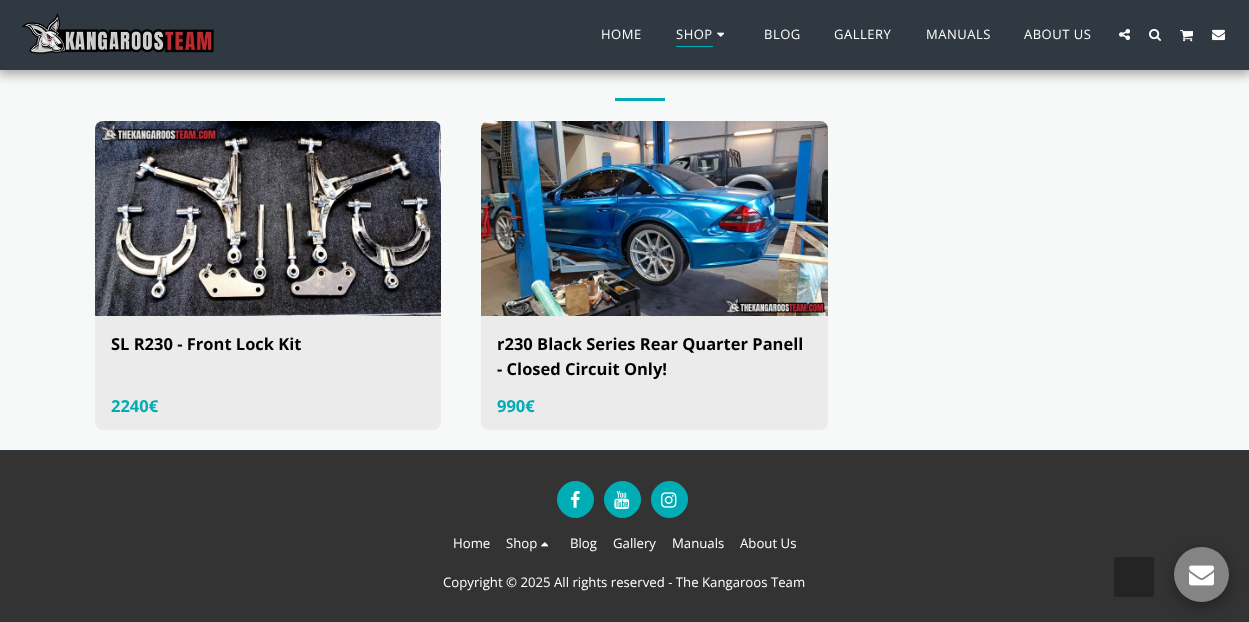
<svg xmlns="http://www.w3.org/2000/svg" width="1249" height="622">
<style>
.a{font:13px Open Sans;letter-spacing:0.5px;fill:#fff}
.b{font:bold 16.5px Open Sans;fill:#000}
.c{font:bold 16.5px Open Sans;fill:#00adb5}
.d{font:13.2px Open Sans;fill:#fff}
</style>
<rect width="100%" height="100%" fill="#f7f9f8"/>
<path fill="#00000059" filter="blur(6px)" d="M-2 0h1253v74H-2z"/>
<path fill="#303841" d="M0 0h1249v70H0z"/>
<image href="1.png" x="22" y="13" width="192" height="41"/>
<path fill="#00adb5" d="M676 46h37v1H676z"/>
<image href="2.png" x="717" y="32" width="7" height="5"/>
<image href="3.png" x="1119" y="28" width="11" height="13"/>
<image href="4.png" x="1149" y="28" width="12" height="13"/>
<image href="5.png" x="1180" y="30" width="13" height="12"/>
<image href="6.png" x="1212" y="29" width="13" height="12"/>
<path fill="#00adb5" d="M615 98h50v3H615z"/>
<rect fill="#ebebeb" x="95" y="121" width="346" height="309" rx="8"/>
<image href="7.png" x="95" y="121" width="346" height="195"/>
<rect fill="#ebebeb" x="481" y="121" width="347" height="309" rx="8"/>
<image href="8.png" x="481" y="121" width="347" height="195"/>
<path fill="#303841" d="M0 450h1249v1H0z"/>
<path fill="#333" d="M0 451h1249v171H0z"/>
<circle fill="#00adb5" stroke="#00adb5" cx="575.5" cy="499.5" r="18"/>
<image href="9.png" x="570" y="491" width="10" height="17"/>
<circle fill="#00adb5" stroke="#00adb5" cx="622.5" cy="499.5" r="18"/>
<image href="10.png" x="614" y="491" width="16" height="18"/>
<circle fill="#00adb5" stroke="#00adb5" cx="669.5" cy="499.5" r="18"/>
<image href="11.png" x="661" y="492" width="16" height="16"/>
<image href="12.png" x="541" y="542" width="7" height="5"/>
<rect fill="#242424" x="1114" y="557" width="40" height="40" rx="2"/>
<rect fill="#00000059" filter="blur(7.5px)" x="1174" y="552" width="55" height="55" rx="27.5"/>
<circle fill="#848484" cx="1201.5" cy="574.5" r="27.5"/>
<image href="13.png" x="1189" y="565" width="25" height="21"/>
<text class="a" x="601" y="39">HOME</text>
<text class="a" x="676" y="39">SHOP</text>
<text class="a" x="764" y="39">BLOG</text>
<text class="a" x="834" y="39">GALLERY</text>
<text class="a" x="926" y="39">MANUALS</text>
<text class="a" x="1024" y="39">ABOUT US</text>
<text class="b" x="111" y="350">SL R230 - Front Lock Kit</text>
<text class="c" x="111" y="412">2240€</text>
<text class="b" x="497" y="350">r230 Black Series Rear Quarter Panell</text>
<text class="b" x="497" y="375">- Closed Circuit Only!</text>
<text class="c" x="497" y="412">990€</text>
<text class="d" x="453" y="548">Home</text>
<text class="d" x="506" y="548">Shop</text>
<text class="d" x="570" y="548">Blog</text>
<text class="d" x="613" y="548">Gallery</text>
<text class="d" x="672" y="548">Manuals</text>
<text class="d" x="740" y="548">About Us</text>
<text class="d" x="443" y="587">Copyright © 2025 All rights reserved - The Kangaroos Team</text>
</svg>
